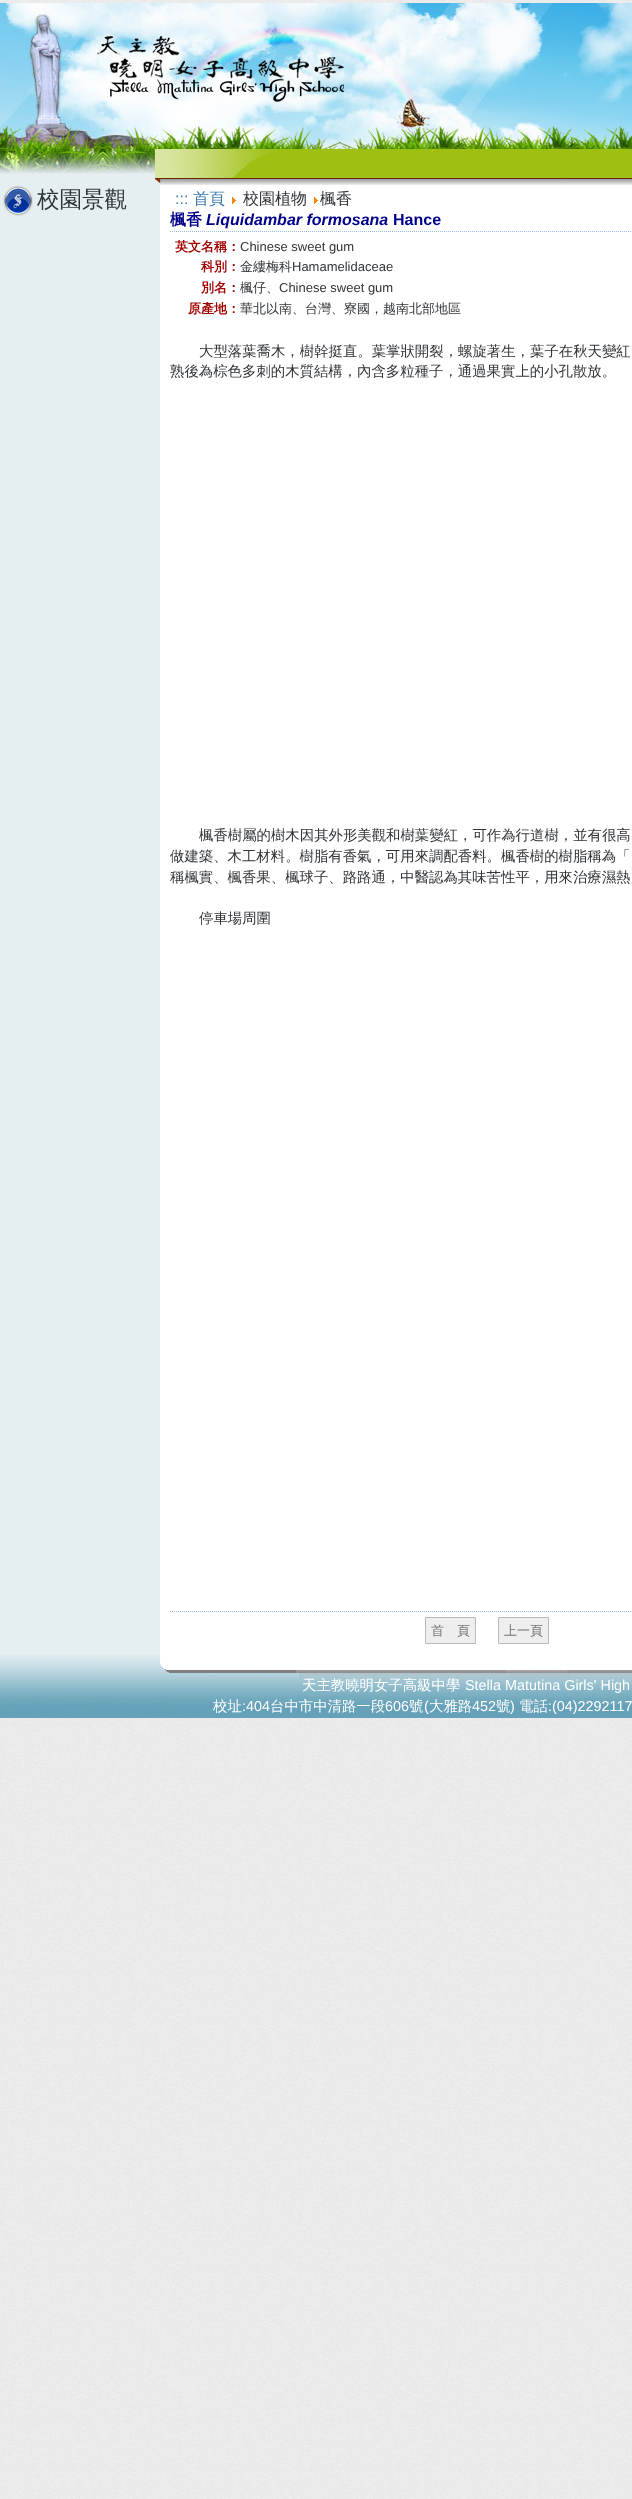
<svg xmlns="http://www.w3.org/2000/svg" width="632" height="2499">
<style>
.a{font:500 22.5px WenQuanYi Zen Hei;fill:#303438}
.b{font:16px Liberation Sans;fill:#3a78ad}
.c{font:500 16px WenQuanYi Zen Hei;fill:#3a78ad}
.d{font:500 16px WenQuanYi Zen Hei;fill:#303438}
.e{font:bold 16px WenQuanYi Zen Hei;fill:#00008b}
.f{font:italic bold 16px Liberation Sans;fill:#00008b}
.g{font:bold 16px Liberation Sans;fill:#00008b}
.h{font:bold 13px WenQuanYi Zen Hei;fill:#a00000}
.i{font:13px Liberation Sans;fill:#303438}
.j{font:500 13px WenQuanYi Zen Hei;fill:#303438}
.k{font:500 14.4px WenQuanYi Zen Hei;fill:#303438}
.l{font:500 13px WenQuanYi Zen Hei;fill:#747474}
.m{font:500 14.4px WenQuanYi Zen Hei;fill:#fff}
.n{font:14.4px Liberation Sans;fill:#fff}
</style>
<rect width="100%" height="100%" fill="#fff"/>
<image href="1.png" x="0" y="0" width="632" height="2499"/>
<image href="2.png" x="0" y="185" width="632" height="1469"/>
<image href="3.png" x="0" y="3" width="632" height="147"/>
<image href="4.png" x="0" y="150" width="160" height="35"/>
<image href="5.png" x="3" y="185" width="30" height="31"/>
<image href="6.png" x="160" y="150" width="472" height="35"/>
<image href="7.png" x="232" y="197" width="4" height="7"/>
<image href="7.png" x="314" y="197" width="4" height="7"/>
<path fill="none" stroke="#95bce2" stroke-dasharray="1 1" d="M170 231.5h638"/>
<path fill="none" stroke="#95bce2" stroke-dasharray="1 1" d="M170 1611.5h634"/>
<path fill="#eee" stroke="#bababa" d="M425.5 1617.5h50v26H425.5z"/>
<path fill="#eee" stroke="#bababa" d="M498.5 1617.5h50v26H498.5z"/>
<image href="8.png" x="0" y="1654" width="632" height="64"/>
<text class="a" x="37" y="207">校園景觀</text>
<text class="b" x="175" y="204">:::</text>
<text class="c" x="193" y="204">首頁</text>
<text class="d" x="243" y="204">校園植物</text>
<text class="d" x="320" y="204">楓香</text>
<text class="e" x="170" y="225">楓香</text>
<text class="f" x="206" y="225">Liquidambar formosana</text>
<text class="g" x="393" y="225">Hance</text>
<text class="h" x="175" y="251">英文名稱：</text>
<text class="i" x="240" y="251">Chinese sweet gum</text>
<text class="h" x="201" y="271">科別：</text>
<text class="j" x="240" y="271">金縷梅科</text>
<text class="i" x="292" y="271">Hamamelidaceae</text>
<text class="h" x="201" y="292">別名：</text>
<text class="j" x="240" y="292">楓仔、</text>
<text class="i" x="279" y="292">Chinese sweet gum</text>
<text class="h" x="188" y="313">原產地：</text>
<text class="j" x="240" y="313">華北以南、台灣、寮國，越南北部地區</text>
<text class="k" x="199" y="356">大型落葉喬木，樹幹挺直。葉掌狀開裂，螺旋著生，葉子在秋天變紅</text>
<text class="k" x="170" y="376">熟後為棕色多刺的木質結構，內含多粒種子，通過果實上的小孔散放。</text>
<text class="k" x="199" y="840">楓香樹屬的樹木因其外形美觀和樹葉變紅，可作為行道樹，並有很高</text>
<text class="k" x="170" y="861">做建築、木工材料。樹脂有香氣，可用來調配香料。楓香樹的樹脂稱為「</text>
<text class="k" x="170" y="882">稱楓實、楓香果、楓球子、路路通，中醫認為其味苦性平，用來治療濕熱</text>
<text class="k" x="199" y="923">停車場周圍</text>
<text class="l" x="431" y="1635">首　頁</text>
<text class="l" x="504" y="1635">上一頁</text>
<text class="m" x="302" y="1690">天主教曉明女子高級中學</text>
<text class="n" x="465" y="1690">Stella Matutina Girls' High</text>
<text class="m" x="213" y="1711">校址</text>
<text class="n" x="242" y="1711">:404</text>
<text class="m" x="270" y="1711">台中市中清路一段</text>
<text class="n" x="385" y="1711">606</text>
<text class="m" x="409" y="1711">號</text>
<text class="n" x="424" y="1711">(</text>
<text class="m" x="429" y="1711">大雅路</text>
<text class="n" x="472" y="1711">452</text>
<text class="m" x="496" y="1711">號</text>
<text class="n" x="510" y="1711">)</text>
<text class="m" x="519" y="1711">電話</text>
<text class="n" x="548" y="1711">:(04)2292117</text>
</svg>
